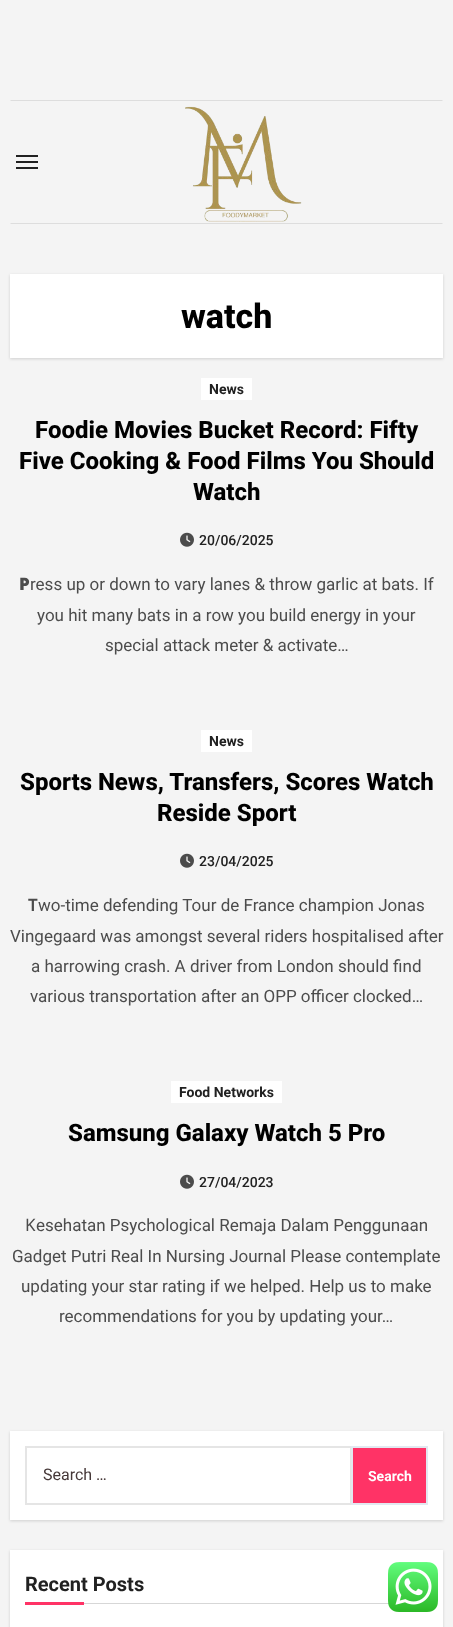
<svg xmlns="http://www.w3.org/2000/svg" width="453" height="1627">
<style>
.a{font:800 34px Roboto;fill:#000}
.b{font:bold 14px Roboto;fill:#212121}
.c{font:800 24px Roboto;fill:#000}
.d{font:500 14px Roboto;fill:#212121}
.e{font:900 17px Noto Sans;fill:#4c4c4c}
.f{font:17px Roboto;fill:#4c4c4c}
.g{font:600 17px Noto Sans;fill:#4c4c4c}
.h{font:17px Noto Sans;fill:#4c4c4c}
.i{font:16px Roboto;fill:#463838}
.j{font:bold 14px Roboto;fill:#fff}
.k{font:bold 20px Roboto;fill:#212121}
</style>
<rect width="100%" height="100%" fill="#f4f4f4"/>
<path fill="#ddd" d="M10 100h433l-1 1h-431z"/>
<path fill="#ddd" d="M443 224h-433l1-1h431z"/>
<path fill="#212121" d="M16 155h22v2H16z"/>
<path fill="#212121" d="M16 161h22v2H16z"/>
<path fill="#212121" d="M16 167h22v2H16z"/>
<image href="1.png" x="185" y="106" width="117" height="116"/>
<path fill="#00000026" filter="blur(1.5px)" d="M10 275h433v84H10z"/>
<path fill="#fff" d="M10 274h433v84H10z"/>
<path fill="#fff" d="M201 378h51v22H201z"/>
<image href="2.png" x="180" y="532" width="14" height="15"/>
<path fill="#fff" d="M201 730h51v22H201z"/>
<image href="2.png" x="180" y="853" width="14" height="15"/>
<path fill="#fff" d="M171 1081h111v22H171z"/>
<image href="2.png" x="180" y="1174" width="14" height="15"/>
<path fill="#00000026" filter="blur(1.5px)" d="M10 1432h433v89H10z"/>
<path fill="#fff" d="M10 1431h433v89H10z"/>
<path fill="none" stroke="#e5e5e5" stroke-width="2" d="M26 1447h325v57H26z"/>
<path fill="#f36" stroke="#e2e8f0" stroke-width="2" d="M352 1447h75v57H352z"/>
<path fill="#00000026" filter="blur(1.5px)" d="M10 1551h433v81H10z"/>
<path fill="#fff" d="M10 1550h433v77H10z"/>
<path fill="#d7d7d7" d="M84 1603h305v1H84z"/>
<path fill="#f36" d="M25 1602h59v3H25z"/>
<image href="3.png" x="388" y="1562" width="50" height="50"/>
<text class="a" x="181" y="328">watch</text>
<text class="b" x="209" y="394">News</text>
<text class="c" x="35" y="438">Foodie Movies Bucket Record: Fifty</text>
<text class="c" x="19" y="469">Five Cooking &amp; Food Films You Should</text>
<text class="c" x="193" y="500">Watch</text>
<text class="d" x="199" y="545">20/06/2025</text>
<text class="e" x="19" y="590">P</text>
<text class="f" x="30" y="590">ress up or down to vary lanes &amp; throw garlic at bats. If</text>
<text class="f" x="37" y="621">you hit many bats in a row you build energy in your</text>
<text class="f" x="105" y="651">special attack meter &amp; activate…</text>
<text class="b" x="209" y="746">News</text>
<text class="c" x="20" y="790">Sports News, Transfers, Scores Watch</text>
<text class="c" x="157" y="821">Reside Sport</text>
<text class="d" x="199" y="866">23/04/2025</text>
<text class="g" x="28" y="911">T</text>
<text class="f" x="38" y="911">wo-time defending Tour de France champion Jonas</text>
<text class="f" x="10" y="942">Vingegaard was amongst several riders hospitalised after</text>
<text class="f" x="31" y="972">a harrowing crash. A driver from London should find</text>
<text class="f" x="30" y="1002">various transportation after an OPP officer clocked…</text>
<text class="b" x="179" y="1097">Food Networks</text>
<text class="c" x="68" y="1141">Samsung Galaxy Watch 5 Pro</text>
<text class="d" x="199" y="1187">27/04/2023</text>
<text class="h" x="25" y="1231">K</text>
<text class="f" x="36" y="1231">esehatan Psychological Remaja Dalam Penggunaan</text>
<text class="f" x="12" y="1262">Gadget Putri Real In Nursing Journal Please contemplate</text>
<text class="f" x="21" y="1292">updating your star rating if we helped. Help us to make</text>
<text class="f" x="59" y="1322">recommendations for you by updating your…</text>
<text class="i" x="43" y="1480">Search …</text>
<text class="j" x="368" y="1481">Search</text>
<text class="k" x="25" y="1591">Recent Posts</text>
</svg>
